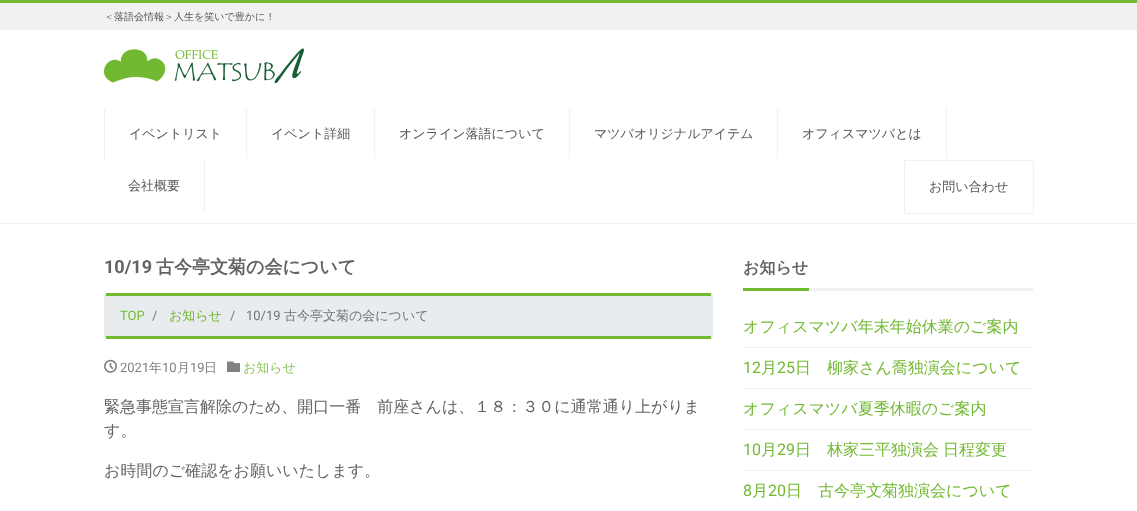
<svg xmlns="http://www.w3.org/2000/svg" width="1137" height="511">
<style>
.a{font:500 10px WenQuanYi Zen Hei;fill:#565656}
.b{font:500 13px WenQuanYi Zen Hei;fill:#565656}
.c{font:bold 18px Roboto;fill:#636363}
.d{font:bold 18px WenQuanYi Zen Hei;fill:#636363}
.e{font:13px Roboto;fill:#72b932}
.f{font:13px Roboto;fill:#6c757d}
.g{font:500 13px WenQuanYi Zen Hei;fill:#72b932}
.h{font:500 13px WenQuanYi Zen Hei;fill:#6c757d}
.i{font:13px Roboto;fill:#828282}
.j{font:500 13px WenQuanYi Zen Hei;fill:#828282}
.k{font:500 13px WenQuanYi Zen Hei;fill:#8ec75b}
.l{font:500 16px WenQuanYi Zen Hei;fill:#636363}
.m{font:bold 16px WenQuanYi Zen Hei;fill:#636363}
.n{font:500 16px WenQuanYi Zen Hei;fill:#72b932}
.o{font:16px Roboto;fill:#72b932}
</style>
<rect width="100%" height="100%" fill="#fff"/>
<path fill="#72b932" d="M0 0h1137v3H0z"/>
<path fill="#f1f1f1" d="M0 3h1137v27H0z"/>
<image href="1.png" x="104" y="48" width="200" height="35"/>
<path fill="#f1f1f1" d="M0 223h1137v1H0z"/>
<path fill="#f1f1f1" d="M104 160v-52h1v51z"/>
<path fill="#f1f1f1" d="M246 108h1v51H246z"/>
<path fill="#f1f1f1" d="M374 108h1v51H374z"/>
<path fill="#f1f1f1" d="M569 108h1v51H569z"/>
<path fill="#f1f1f1" d="M777 108h1v51H777z"/>
<path fill="#f1f1f1" d="M946 108h1v51H946z"/>
<path fill="#f1f1f1" d="M204 160h1v52H204z"/>
<path fill="none" stroke="#f1f1f1" d="M904.5 160.5h129v53H904.5z"/>
<rect fill="#e9ecef" x="104" y="293" width="609" height="46" rx="4"/>
<path fill="#72b932" d="M106 293h605v3H106z"/>
<path fill="#72b932" d="M106 336h605v3H106z"/>
<image href="2.png" x="104" y="359" width="13" height="14"/>
<image href="3.png" x="227" y="361" width="13" height="11"/>
<path fill="#f1f1f1" d="M809 288h224v3H809z"/>
<path fill="#72b932" d="M743 288h66v3H743z"/>
<path fill="#f1f1f1" d="M743 347h290v1H743z"/>
<path fill="#f1f1f1" d="M743 388h290v1H743z"/>
<path fill="#f1f1f1" d="M743 429h290v1H743z"/>
<path fill="#f1f1f1" d="M743 470h290v1H743z"/>
<text class="a" x="104" y="20">＜落語会情報＞人生を笑いで豊かに！</text>
<text class="b" x="129" y="138">イベントリスト</text>
<text class="b" x="271" y="138">イベント詳細</text>
<text class="b" x="399" y="138">オンライン落語について</text>
<text class="b" x="594" y="138">マツバオリジナルアイテム</text>
<text class="b" x="802" y="138">オフィスマツバとは</text>
<text class="b" x="128" y="190">会社概要</text>
<text class="b" x="929" y="191">お問い合わせ</text>
<text class="c" x="104" y="273">10/19</text>
<text class="d" x="156" y="273">古今亭文菊の会について</text>
<text class="e" x="120" y="320">TOP</text>
<text class="f" x="152" y="320">/</text>
<text class="g" x="169" y="320">お知らせ</text>
<text class="f" x="230" y="320">/</text>
<text class="f" x="246" y="320">10/19</text>
<text class="h" x="284" y="320">古今亭文菊の会について</text>
<text class="i" x="120" y="372">2021</text>
<text class="j" x="149" y="372">年</text>
<text class="i" x="162" y="372">10</text>
<text class="j" x="177" y="372">月</text>
<text class="i" x="190" y="372">19</text>
<text class="j" x="204" y="372">日</text>
<text class="k" x="243" y="372">お知らせ</text>
<text class="l" x="104" y="412">緊急事態宣言解除のため、開口一番　前座さんは、１８：３０に通常通り上がりま</text>
<text class="l" x="104" y="436">す。</text>
<text class="l" x="104" y="476">お時間のご確認をお願いいたします。</text>
<text class="m" x="743" y="273">お知らせ</text>
<text class="n" x="743" y="332">オフィスマツバ年末年始休業のご案内</text>
<text class="o" x="743" y="373">12</text>
<text class="n" x="761" y="373">月</text>
<text class="o" x="777" y="373">25</text>
<text class="n" x="795" y="373">日　柳家さん喬独演会について</text>
<text class="n" x="743" y="414">オフィスマツバ夏季休暇のご案内</text>
<text class="o" x="743" y="455">10</text>
<text class="n" x="761" y="455">月</text>
<text class="o" x="777" y="455">29</text>
<text class="n" x="795" y="455">日　林家三平独演会</text>
<text class="n" x="943" y="455">日程変更</text>
<text class="o" x="743" y="496">8</text>
<text class="n" x="752" y="496">月</text>
<text class="o" x="768" y="496">20</text>
<text class="n" x="786" y="496">日　古今亭文菊独演会について</text>
</svg>
